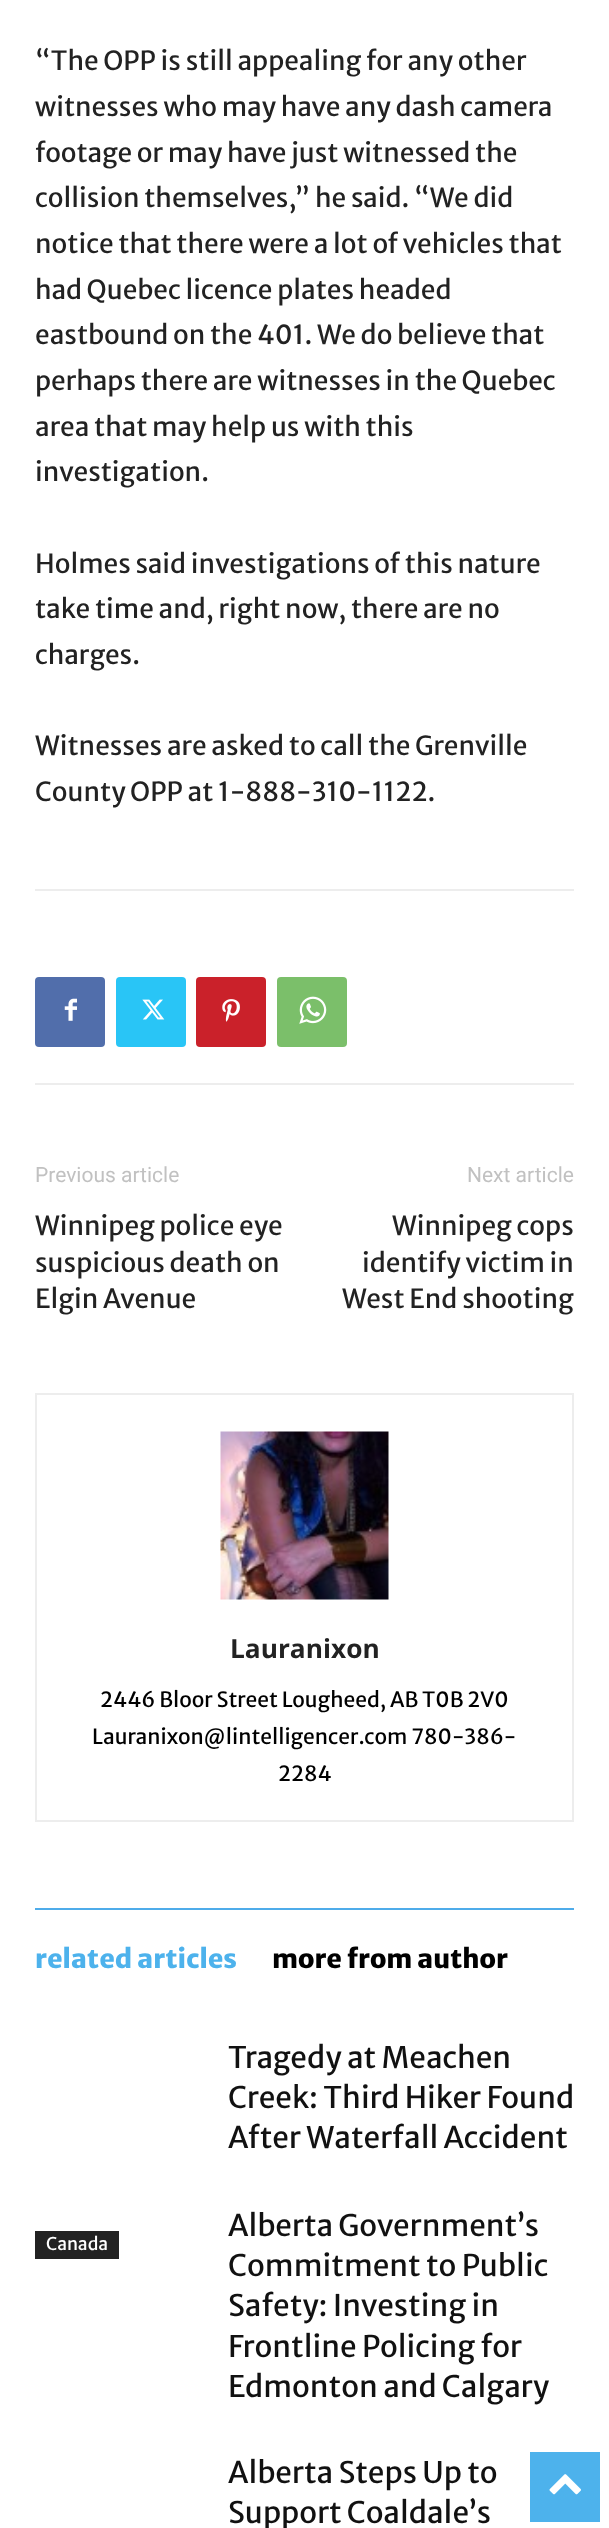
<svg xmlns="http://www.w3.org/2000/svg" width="609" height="2528">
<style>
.a{font:26.25px Merriweather Sans;fill:#222}
.b{font:21px Roboto;fill:#c1c1c1}
.c{font:bold 26.25px Open Sans;fill:#222}
.d{font:21px Merriweather Sans;fill:#000}
.e{font:800 26.25px Merriweather Sans;fill:#4db2ec}
.f{font:800 26.25px Merriweather Sans;fill:#000}
.g{font:29.75px Merriweather Sans;fill:#111}
.h{font:17.5px Merriweather Sans;fill:#fff}
</style>
<rect width="100%" height="100%" fill="#fff"/>
<path fill="#ededed" d="M35 889h539v2H35z"/>
<path fill="#ededed" d="M35 1083h539v2H35z"/>
<rect fill="#516eab" x="35" y="977" width="70" height="70" rx="4"/>
<image href="1.png" x="64" y="998" width="13" height="23"/>
<rect fill="#29c5f6" x="116" y="977" width="70" height="70" rx="4"/>
<image href="2.png" x="142" y="999" width="23" height="21"/>
<rect fill="#ca212a" x="196" y="977" width="70" height="70" rx="4"/>
<image href="3.png" x="222" y="999" width="18" height="23"/>
<rect fill="#7bbf6a" x="277" y="977" width="70" height="70" rx="4"/>
<image href="4.png" x="299" y="996" width="28" height="28"/>
<path fill="none" stroke="#ededed" stroke-width="2" d="M36 1394h537v427H36z"/>
<image href="5.png" x="220" y="1431" width="169" height="169"/>
<path fill="#4facea" d="M35 1908h539v2H35z"/>
<path fill="#222" d="M35 2231h84v28H35z"/>
<path fill="#4db2ec" d="M530 2452h70v70H530z"/>
<image href="6.png" x="549" y="2474" width="32" height="21"/>
<text class="a" x="35" y="70">“The OPP is still appealing for any other</text>
<text class="a" x="35" y="116">witnesses who may have any dash camera</text>
<text class="a" x="35" y="162">footage or may have just witnessed the</text>
<text class="a" x="35" y="207">collision themselves,” he said. “We did</text>
<text class="a" x="35" y="253">notice that there were a lot of vehicles that</text>
<text class="a" x="35" y="299">had Quebec licence plates headed</text>
<text class="a" x="35" y="344">eastbound on the 401. We do believe that</text>
<text class="a" x="35" y="390">perhaps there are witnesses in the Quebec</text>
<text class="a" x="35" y="436">area that may help us with this</text>
<text class="a" x="35" y="481">investigation.</text>
<text class="a" x="35" y="573">Holmes said investigations of this nature</text>
<text class="a" x="35" y="618">take time and, right now, there are no</text>
<text class="a" x="35" y="664">charges.</text>
<text class="a" x="35" y="755">Witnesses are asked to call the Grenville</text>
<text class="a" x="35" y="801">County OPP at 1-888-310-1122.</text>
<text class="b" x="35" y="1182">Previous article</text>
<text class="a" x="35" y="1235">Winnipeg police eye</text>
<text class="a" x="35" y="1272">suspicious death on</text>
<text class="a" x="35" y="1308">Elgin Avenue</text>
<text class="b" x="467" y="1182">Next article</text>
<text class="a" x="392" y="1235">Winnipeg cops</text>
<text class="a" x="362" y="1272">identify victim in</text>
<text class="a" x="342" y="1308">West End shooting</text>
<text class="c" x="230" y="1658">Lauranixon</text>
<text class="d" x="100" y="1707">2446 Bloor Street Lougheed, AB T0B 2V0</text>
<text class="d" x="92" y="1744">Lauranixon@lintelligencer.com 780-386-</text>
<text class="d" x="278" y="1781">2284</text>
<text class="e" x="35" y="1968">related articles</text>
<text class="f" x="272" y="1968">more from author</text>
<text class="g" x="228" y="2068">Tragedy at Meachen</text>
<text class="g" x="228" y="2108">Creek: Third Hiker Found</text>
<text class="g" x="228" y="2148">After Waterfall Accident</text>
<text class="h" x="46" y="2250">Canada</text>
<text class="g" x="228" y="2236">Alberta Government’s</text>
<text class="g" x="228" y="2276">Commitment to Public</text>
<text class="g" x="228" y="2316">Safety: Investing in</text>
<text class="g" x="228" y="2357">Frontline Policing for</text>
<text class="g" x="228" y="2397">Edmonton and Calgary</text>
<text class="g" x="228" y="2483">Alberta Steps Up to</text>
<text class="g" x="228" y="2523">Support Coaldale’s</text>
</svg>
